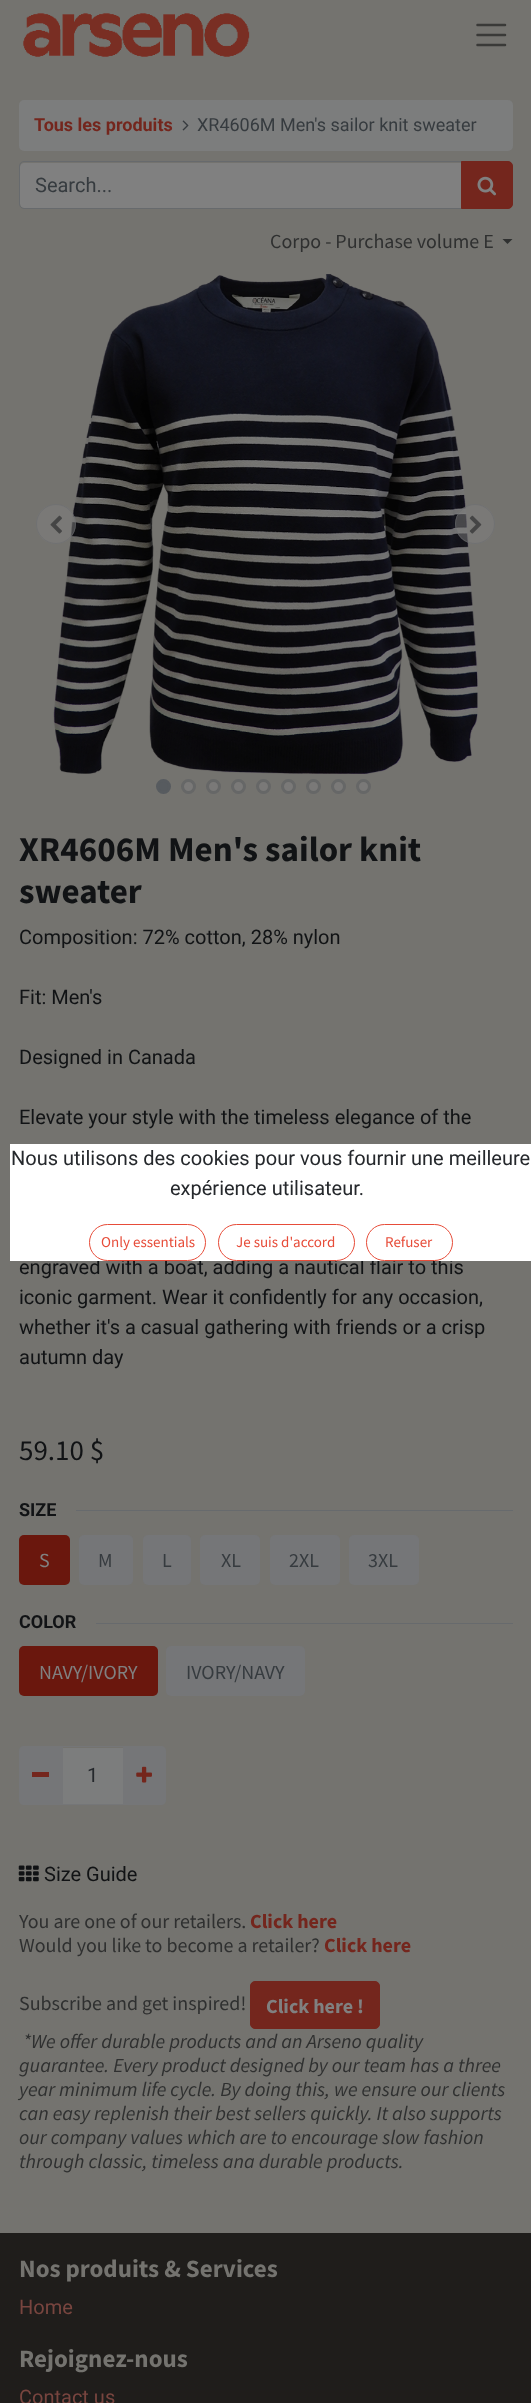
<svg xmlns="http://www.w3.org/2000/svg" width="531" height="2403">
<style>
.a{font:bold 18px Roboto;fill:#74261d}
.b{font:18px Roboto;fill:#363b3f}
.c{font:20px Roboto;fill:#363b3f}
.d{font:20px Source Sans Pro;fill:#2f3030}
.e{font:bold 35px Source Sans Pro;fill:#111315}
.f{font:20px Roboto;fill:#111315}
.g{font:29px Source Sans Pro;fill:#111315}
.h{font:bold 18px Roboto;fill:#111315}
.i{font:20px Source Sans Pro;fill:#808080}
.j{font:20px Source Sans Pro;fill:#363b3f}
.k{font:20px Roboto;fill:#25282c}
.l{font:bold 20px Source Sans Pro;fill:#74261d}
.m{font:bold 20px Source Sans Pro;fill:#808080}
.n{font:italic 20px Source Sans Pro;fill:#2f3030}
.o{font:15px Source Sans Pro;fill:#e74c39}
.p{font:bold 25px Source Sans Pro;fill:#74736f}
.q{font:20px Roboto;fill:#78453f}
</style>
<rect width="100%" height="100%" fill="#74736f"/>
<image href="1.png" x="23" y="13" width="227" height="44"/>
<path fill="none" stroke="#3a3a38" stroke-width="2.5" stroke-linecap="round" d="M477.5 25h27.5m-27.5 10h27.5m-27.5 10h27.5"/>
<rect fill="#7c7d7d" x="19" y="100" width="494" height="51" rx="5"/>
<image href="2.png" x="182" y="120" width="7" height="11"/>
<path fill="#808080" d="M24 163h437v45h-437c-2 0-4-2-4-4v-37c0-2 2-4 4-4z"/>
<path fill="none" stroke="#676a6d" d="M24 161.5h438.5v47h-438.5c-2.5 0-4.5-2-4.5-4.5v-38c0-2.5 2-4.5 4.5-4.5z"/>
<path fill="#74261d" stroke="#74261d" d="M461.5 161.5h46.5c2.5 0 4.5 2 4.5 4.5v38c0 2.5-2 4.5-4.5 4.5h-46.5z"/>
<image href="3.png" x="477" y="176" width="19" height="20"/>
<path fill="#2f3030" d="M502.5 239h10l-5 5z"/>
<image href="4.png" x="53" y="274" width="425" height="500"/>
<circle fill="#80808080" cx="56" cy="524" r="20"/>
<circle fill="none" stroke="#676a6d80" cx="56" cy="524" r="19.5"/>
<image href="5.png" x="50" y="515" width="12" height="19"/>
<circle fill="#80808080" cx="475" cy="524" r="20"/>
<circle fill="none" stroke="#676a6d80" cx="475" cy="524" r="19.5"/>
<image href="6.png" x="469" y="515" width="13" height="19"/>
<circle fill="#575b5f" stroke="#575b5f" stroke-width="3" cx="163.5" cy="786.5" r="6"/>
<circle fill="#7a7978" stroke="#666767" stroke-width="3" cx="188.5" cy="786.5" r="6"/>
<circle fill="#7a7978" stroke="#666767" stroke-width="3" cx="213.5" cy="786.5" r="6"/>
<circle fill="#7a7978" stroke="#666767" stroke-width="3" cx="238.5" cy="786.5" r="6"/>
<circle fill="#7a7978" stroke="#666767" stroke-width="3" cx="263.5" cy="786.5" r="6"/>
<circle fill="#7a7978" stroke="#666767" stroke-width="3" cx="288.5" cy="786.5" r="6"/>
<circle fill="#7a7978" stroke="#666767" stroke-width="3" cx="313.5" cy="786.5" r="6"/>
<circle fill="#7a7978" stroke="#666767" stroke-width="3" cx="338.5" cy="786.5" r="6"/>
<circle fill="#7a7978" stroke="#666767" stroke-width="3" cx="363.5" cy="786.5" r="6"/>
<path fill="#676a6d" d="M76 1510h437v1H76z"/>
<rect fill="#6a170d" x="19" y="1535" width="51" height="50" rx="5"/>
<rect fill="#757678" x="79" y="1535" width="54" height="50" rx="5"/>
<rect fill="#757678" x="143" y="1535" width="48" height="50" rx="5"/>
<rect fill="#757678" x="200" y="1535" width="60" height="50" rx="5"/>
<rect fill="#757678" x="270" y="1535" width="70" height="50" rx="5"/>
<rect fill="#757678" x="349" y="1535" width="70" height="50" rx="5"/>
<path fill="#676a6d" d="M96 1623h417v1H96z"/>
<rect fill="#6a170d" x="19" y="1646" width="139" height="50" rx="5"/>
<rect fill="#757678" x="166" y="1646" width="139" height="50" rx="5"/>
<path fill="#7c7d7d" d="M63 1748h60v56H63z"/>
<path fill="none" stroke="#757678" d="M61.5 1746.5h62v58H61.5z"/>
<path fill="#757678" d="M24 1746h39v59h-39c-3 0-5-2-5-5v-49c0-3 2-5 5-5z"/>
<path fill="#74261d" d="M32 1772h17v5H32z"/>
<path fill="#757678" d="M123 1746h38c3 0 5 2 5 5v49c0 3-2 5-5 5h-38z"/>
<image href="7.png" x="136" y="1766" width="16" height="17"/>
<image href="8.png" x="18" y="1865" width="21" height="17"/>
<rect fill="#74261d" stroke="#74261d" x="250.5" y="1981.5" width="129" height="47" rx="4.5"/>
<path fill="#1f1d1b" d="M0 2233h531v170H0z"/>
<text class="a" x="34" y="131">Tous les produits</text>
<text class="b" x="197" y="131">XR4606M Men's sailor knit sweater</text>
<text class="c" x="35" y="192">Search...</text>
<text class="d" x="270" y="248">Corpo - Purchase volume E</text>
<text class="e" x="19" y="861">XR4606M Men's sailor knit</text>
<text class="e" x="19" y="903">sweater</text>
<text class="f" x="19" y="944">Composition: 72% cotton, 28% nylon</text>
<text class="f" x="19" y="1004">Fit: Men's</text>
<text class="f" x="19" y="1064">Designed in Canada</text>
<text class="f" x="19" y="1124">Elevate your style with the timeless elegance of the</text>
<text class="f" x="19" y="1274">engraved with a boat, adding a nautical flair to this</text>
<text class="f" x="19" y="1304">iconic garment. Wear it confidently for any occasion,</text>
<text class="f" x="19" y="1334">whether it's a casual gathering with friends or a crisp</text>
<text class="f" x="19" y="1364">autumn day</text>
<text class="g" x="19" y="1460">59.10 $</text>
<text class="h" x="19" y="1516">SIZE</text>
<text class="i" x="39" y="1567">S</text>
<text class="j" x="98" y="1567">M</text>
<text class="j" x="162" y="1567">L</text>
<text class="j" x="221" y="1567">XL</text>
<text class="j" x="289" y="1567">2XL</text>
<text class="j" x="368" y="1567">3XL</text>
<text class="h" x="19" y="1628">COLOR</text>
<text class="i" x="39" y="1679">NAVY/IVORY</text>
<text class="j" x="186" y="1679">IVORY/NAVY</text>
<text class="k" x="87" y="1782">1</text>
<text class="f" x="44" y="1881">Size Guide</text>
<text class="d" x="19" y="1928">You are one of our retailers.</text>
<text class="l" x="250" y="1928">Click here</text>
<text class="d" x="19" y="1952">Would you like to become a retailer?</text>
<text class="l" x="324" y="1952">Click here</text>
<text class="d" x="19" y="2010">Subscribe and get inspired!</text>
<text class="m" x="266" y="2013">Click here !</text>
<text class="n" x="23" y="2048">*We offer durable products and an Arseno quality</text>
<text class="n" x="19" y="2072">guarantee. Every product designed by our team has a three</text>
<text class="n" x="19" y="2096">year minimum life cycle. By doing this, we ensure our clients</text>
<text class="n" x="19" y="2120">can easy replenish their best sellers quickly. It also supports</text>
<text class="n" x="19" y="2144">our company values which are to encourage slow fashion</text>
<text class="n" x="19" y="2168">through classic, timeless ana durable products.</text>
<path fill="#fff" d="M10 1144h521v117H10z"/>
<text class="k" x="11" y="1165">Nous utilisons des cookies pour vous fournir une meilleure</text>
<text class="k" x="170" y="1195">expérience utilisateur.</text>
<rect fill="none" stroke="#e74c39" x="89.5" y="1224.5" width="116" height="36" rx="18"/>
<text class="o" x="101" y="1247">Only essentials</text>
<rect fill="none" stroke="#e74c39" x="218.5" y="1224.5" width="136" height="36" rx="18"/>
<text class="o" x="236" y="1247">Je suis d'accord</text>
<rect fill="none" stroke="#e74c39" x="366.5" y="1224.5" width="86" height="36" rx="18"/>
<text class="o" x="385" y="1247">Refuser</text>
<text class="p" x="19" y="2277">Nos produits &amp; Services</text>
<text class="q" x="19" y="2314">Home</text>
<text class="p" x="19" y="2367">Rejoignez-nous</text>
<text class="q" x="19" y="2404">Contact us</text>
</svg>
